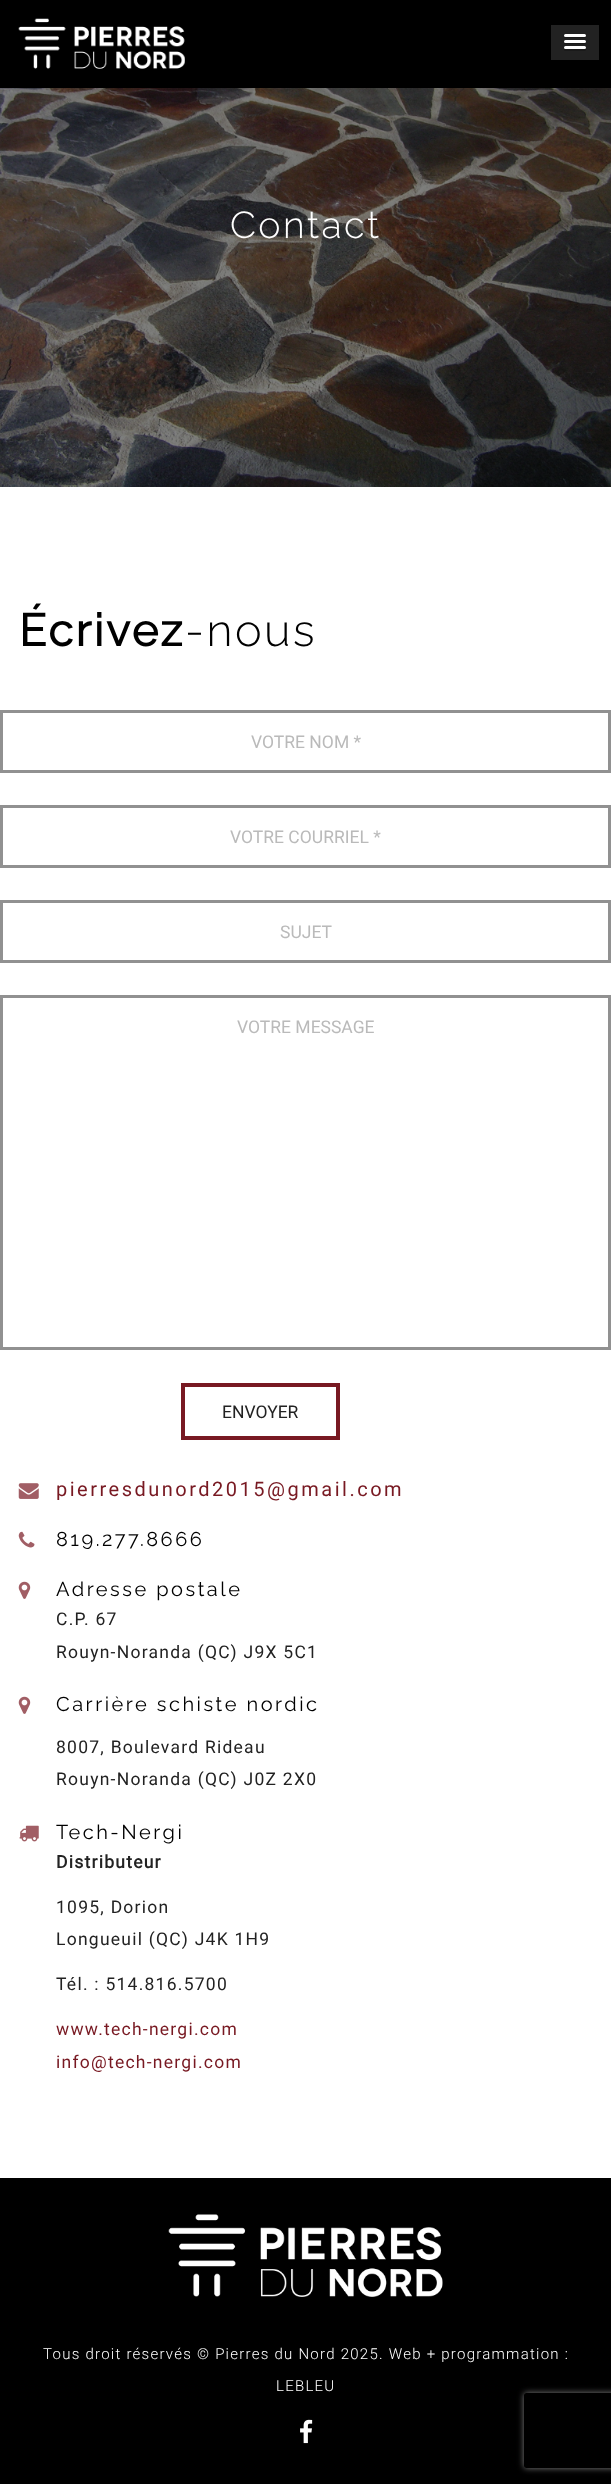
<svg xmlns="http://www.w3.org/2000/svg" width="611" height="2484">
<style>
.a{font:300 37.5px Raleway;letter-spacing:2.5px;fill:#fff}
.b{font:bold 45px Raleway;letter-spacing:2.5px;fill:#000}
.c{font:300 45px Raleway;letter-spacing:2.5px;fill:#000}
.d{font:17.5px Roboto;fill:#bababa}
.e{font:17.5px Roboto;fill:#222}
.f{font:20px Roboto;letter-spacing:2.5px;fill:#781922}
.g{font:20px Raleway;letter-spacing:2.5px;fill:#000}
.h{font:17.5px Roboto;letter-spacing:1.25px;fill:#222}
.i{font:bold 17.5px Roboto;letter-spacing:1.25px;fill:#222}
.j{font:17.5px Roboto;letter-spacing:1.25px;fill:#781922}
.k{font:300 15px Roboto;letter-spacing:1.25px;fill:#fff}
</style>
<defs>
<clipPath id="clip1"><path d="M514 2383h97v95h-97zm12.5 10h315c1.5 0 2.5 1 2.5 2.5v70c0 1.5-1 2.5-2.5 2.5h-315c-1.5 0-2.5-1-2.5-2.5v-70c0-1.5 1-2.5 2.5-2.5z" clip-rule="evenodd"/></clipPath>
</defs>
<rect width="100%" height="100%" fill="#fff"/>
<path fill="#000" d="M0 0h611v88H0z"/>
<image href="1.png" x="18" y="18" width="167" height="51"/>
<path fill="#222" d="M551 25h48v35H551z"/>
<path fill="#1a1a1a" d="M564 36c-1 2.5 4 2 4.5 2h13c.5 0 5.5 .5 4.5-2c-1 .5-21 .5-22 0z"/>
<rect fill="#fff" x="564" y="34" width="22" height="3" rx="1.5"/>
<path fill="#1a1a1a" d="M564 42c-.5 2.5 4 2 4.5 2h13c.5 0 5 .5 4.5-2c-1 1-21 1-22 0z"/>
<rect fill="#fff" x="564" y="40" width="22" height="3" rx="1.5"/>
<path fill="#1a1a1a" d="M564.5 48.5l-.5 1.5c.5 1.5 3.5 1 4.5 1h13c1 0 4 .5 4.5-1l-.5-1.5z"/>
<rect fill="#fff" x="564" y="46" width="22" height="3" rx="1.5"/>
<image href="2.png" x="0" y="88" width="611" height="399"/>
<path fill="none" stroke="#919191" stroke-width="3" d="M1.5 711.5h608v60H1.5z"/>
<path fill="none" stroke="#919191" stroke-width="3" d="M1.5 806.5h608v60H1.5z"/>
<path fill="none" stroke="#919191" stroke-width="3" d="M1.5 901.5h608v60H1.5z"/>
<path fill="none" stroke="#919191" stroke-width="3" d="M1.5 996.5h608v352H1.5z"/>
<path fill="none" stroke="#781922" stroke-width="4" d="M183 1385h155v53H183z"/>
<image href="3.png" x="18" y="1483" width="21" height="16"/>
<image href="4.png" x="18" y="1531" width="17" height="17"/>
<image href="5.png" x="18" y="1581" width="13" height="18"/>
<image href="5.png" x="18" y="1696" width="13" height="18"/>
<image href="6.png" x="19" y="1825" width="20" height="17"/>
<path fill="#000" d="M0 2178h611v306H0z"/>
<image href="7.png" x="168" y="2214" width="275" height="83"/>
<image href="8.png" x="300" y="2419" width="13" height="25"/>
<g clip-path="url(#clip1)">
<rect fill="#808080" filter="blur(3px)" x="524" y="2393" width="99" height="75" rx="2.5"/>
</g>
<text class="a" x="230" y="238">Contact</text>
<text class="b" x="19" y="646">Écrivez</text>
<text class="c" x="185" y="646">-nous</text>
<text class="d" x="251" y="748">VOTRE NOM *</text>
<text class="d" x="230" y="843">VOTRE COURRIEL *</text>
<text class="d" x="280" y="938">SUJET</text>
<text class="d" x="237" y="1033">VOTRE MESSAGE</text>
<text class="e" x="222" y="1418">ENVOYER</text>
<text class="f" x="56" y="1496">pierresdunord2015@gmail.com</text>
<text class="g" x="56" y="1546">819.277.8666</text>
<text class="g" x="56" y="1596">Adresse postale</text>
<text class="h" x="56" y="1625">C.P. 67</text>
<text class="h" x="56" y="1658">Rouyn-Noranda (QC) J9X 5C1</text>
<text class="g" x="56" y="1711">Carrière schiste nordic</text>
<text class="h" x="56" y="1753">8007, Boulevard Rideau</text>
<text class="h" x="56" y="1785">Rouyn-Noranda (QC) J0Z 2X0</text>
<text class="g" x="56" y="1839">Tech-Nergi</text>
<text class="i" x="56" y="1868">Distributeur</text>
<text class="h" x="56" y="1913">1095, Dorion</text>
<text class="h" x="56" y="1945">Longueuil (QC) J4K 1H9</text>
<text class="h" x="56" y="1990">Tél. : 514.816.5700</text>
<text class="j" x="56" y="2035">www.tech-nergi.com</text>
<text class="j" x="56" y="2068">info@tech-nergi.com</text>
<text class="k" x="43" y="2359">Tous droit réservés © Pierres du Nord 2025. Web + programmation :</text>
<text class="k" x="276" y="2391">LEBLEU</text>
</svg>
